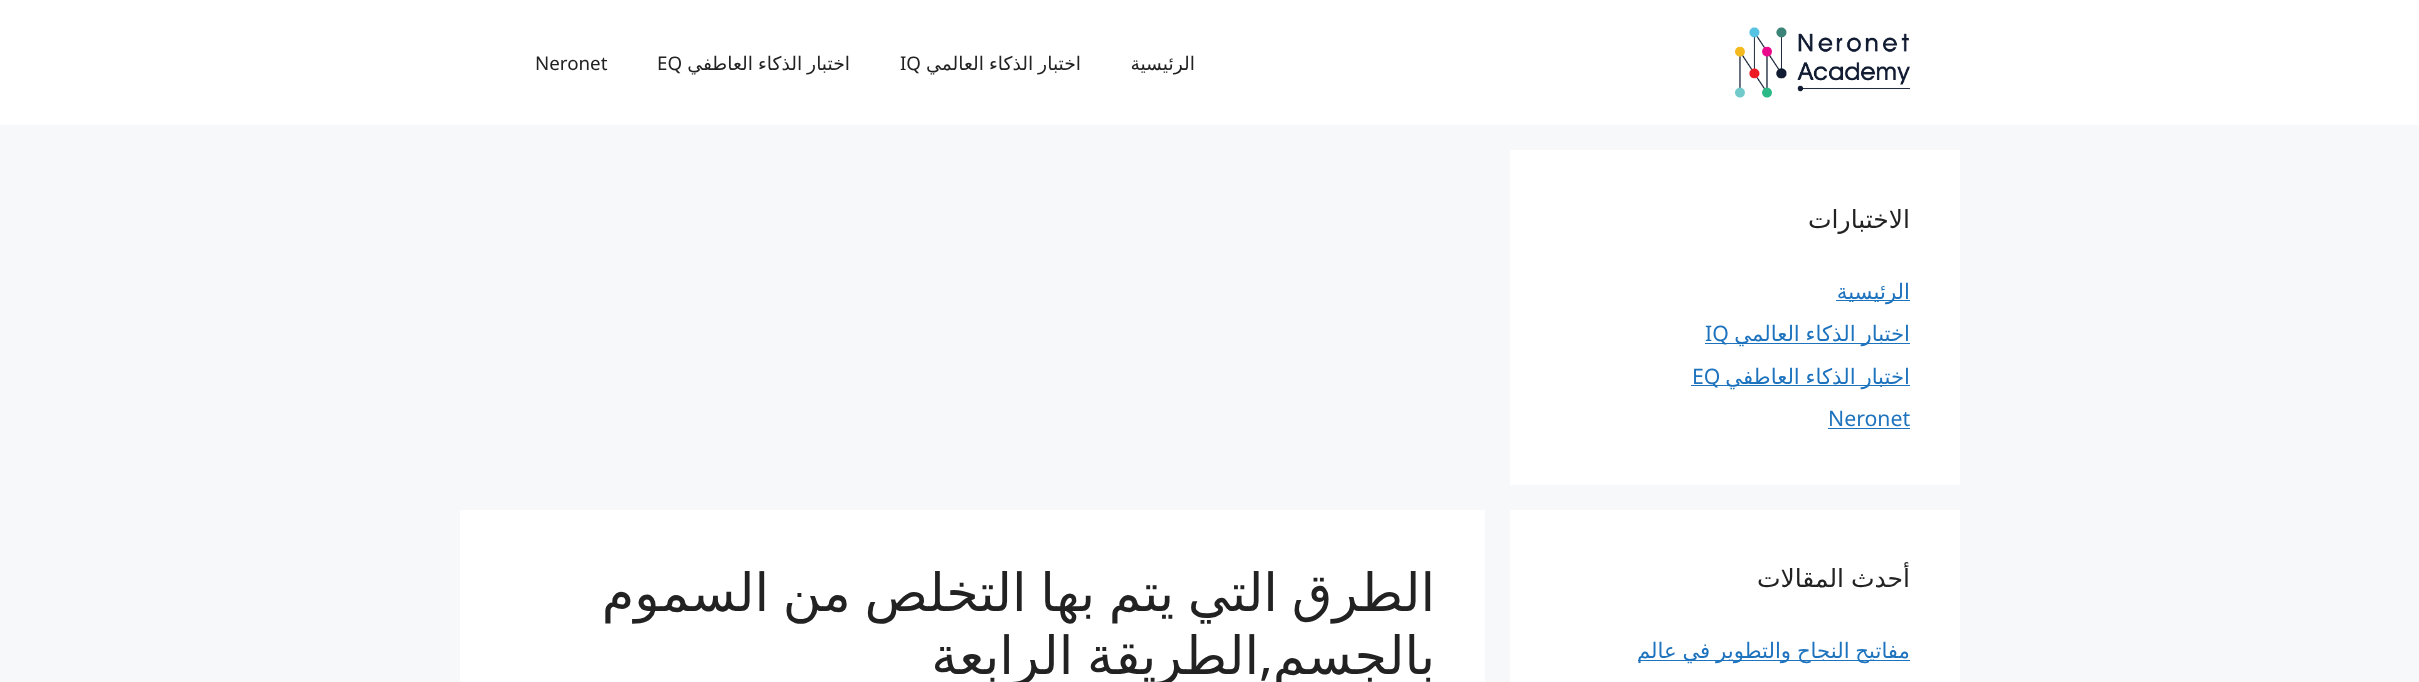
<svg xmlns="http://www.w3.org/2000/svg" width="2419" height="682">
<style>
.a{font:18.75px DejaVu Sans;direction:rtl;fill:#222}
.b{font:18.75px Noto Sans;fill:#222}
.c{font:25px DejaVu Sans;direction:rtl;fill:#222}
.d{font:21.25px DejaVu Sans;direction:rtl;fill:#1e73be}
.e{font:21.25px Noto Sans;fill:#1e73be}
.f{font:52.5px DejaVu Sans;direction:rtl;fill:#222}
.g{font:52.5px Noto Sans;direction:rtl;fill:#222}
</style>
<rect width="100%" height="100%" fill="#f7f8f9"/>
<path fill="#fff" d="M0 0h2419v125H0z"/>
<image href="1.png" x="1735" y="27" width="175" height="71"/>
<path fill="#fff" d="M1510 150h450v335H1510z"/>
<path fill="#1e73be" d="M1836 300h74v1H1836z"/>
<path fill="#1e73be" d="M1705 343h205v1H1705z"/>
<path fill="#1e73be" d="M1691 385h219v1H1691z"/>
<path fill="#1e73be" d="M1828 428h82v1H1828z"/>
<path fill="#fff" d="M1510 510h450v172H1510z"/>
<path fill="#1e73be" d="M1638 660h272v1H1638z"/>
<path fill="#fff" d="M460 510h1025v172H460z"/>
<text class="a" x="1195" y="70">الرئيسية</text>
<text class="a" x="1081" y="70" word-spacing="-1">اختبار الذكاء العالمي</text>
<text class="b" x="900" y="70">IQ</text>
<text class="a" x="850" y="70" word-spacing="-1">اختبار الذكاء العاطفي</text>
<text class="b" x="657" y="70">EQ</text>
<text class="b" x="535" y="70">Neronet</text>
<text class="c" x="1910" y="228">الاختبارات</text>
<text class="d" x="1910" y="299">الرئيسية</text>
<text class="d" x="1910" y="341" word-spacing="-1">اختبار الذكاء العالمي</text>
<text class="e" x="1705" y="341">IQ</text>
<text class="d" x="1910" y="384" word-spacing="-1">اختبار الذكاء العاطفي</text>
<text class="e" x="1692" y="384">EQ</text>
<text class="e" x="1828" y="426">Neronet</text>
<text class="c" x="1910" y="587" word-spacing="-1">أحدث المقالات</text>
<text class="d" x="1910" y="658" word-spacing="-1">مفاتيح النجاح والتطوير في عالم</text>
<text class="f" x="1435" y="611" word-spacing="-3">الطرق التي يتم بها التخلص من السموم</text>
<text class="f" x="1435" y="674">بالجسم</text>
<text class="g" x="1273" y="674">,</text>
<text class="f" x="1259" y="674" word-spacing="-3">الطريقة الرابعة</text>
</svg>
